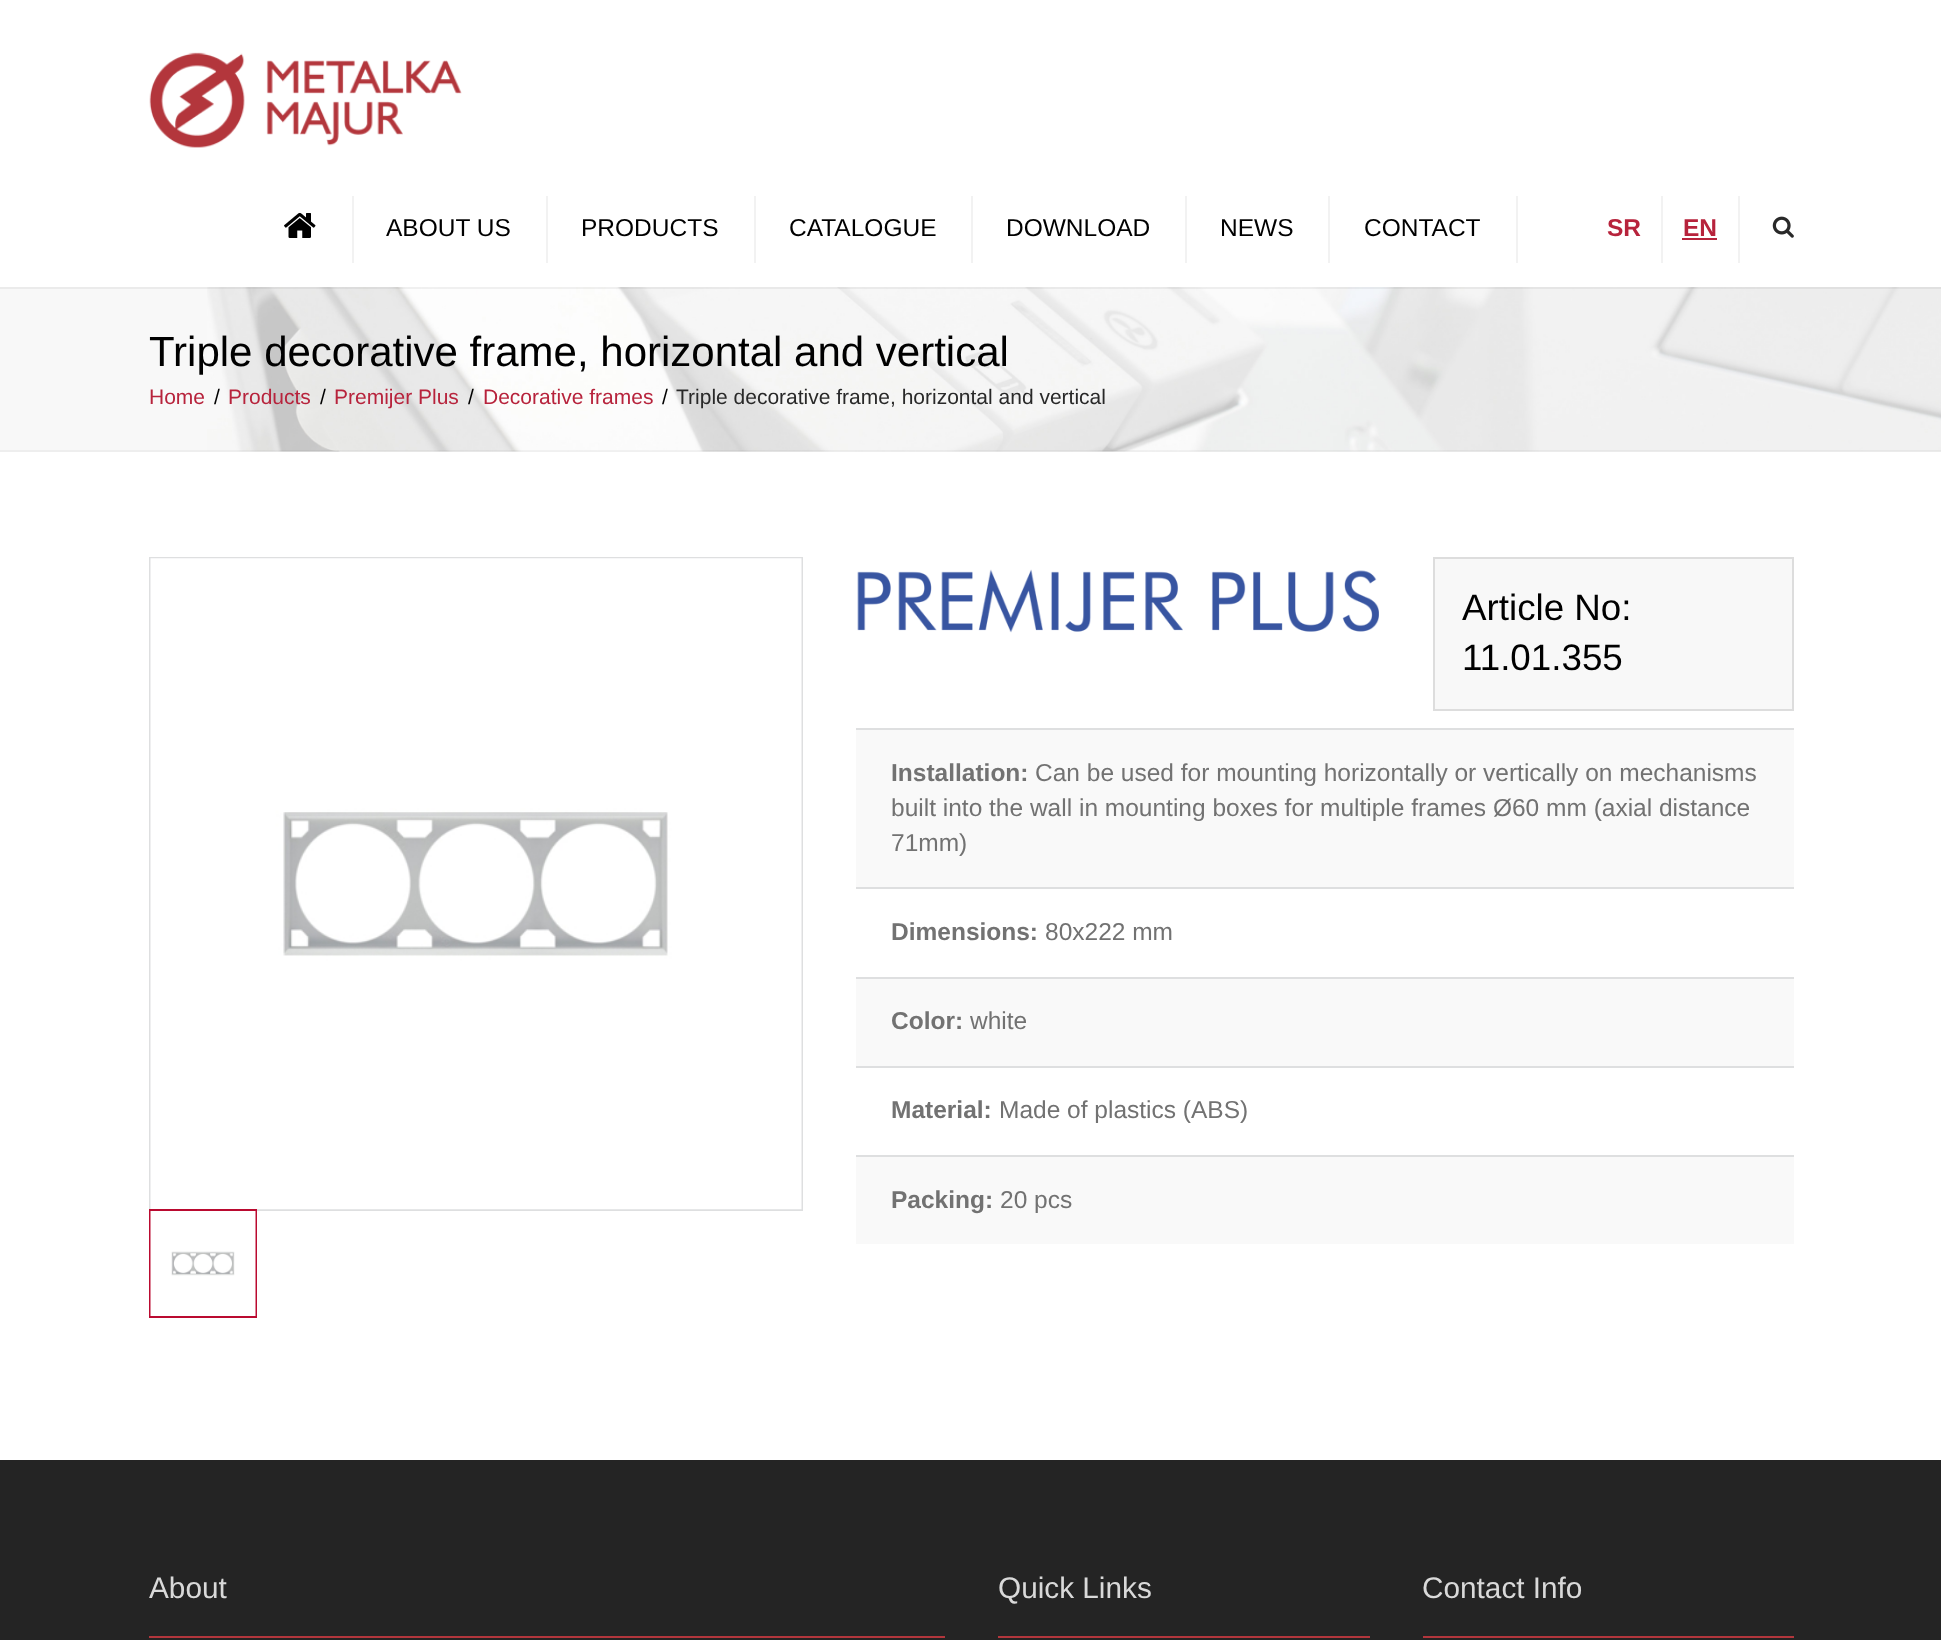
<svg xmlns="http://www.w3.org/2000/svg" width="1941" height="1640">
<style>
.a{font:24.5px Liberation Sans;fill:#000}
.b{font:bold 24.5px Liberation Sans;fill:#b7233c}
.c{font:42px Liberation Sans;fill:#000}
.d{font:21px Liberation Sans;fill:#b7233c}
.e{font:21px Liberation Sans;fill:#000}
.f{font:21px Liberation Sans;fill:#292929}
.g{font:36.75px Liberation Sans;fill:#000}
.h{font:bold 24.5px Liberation Sans;fill:#727272}
.i{font:24.5px Liberation Sans;fill:#727272}
.j{font:29.75px Liberation Sans;fill:#d9d9d9}
</style>
<rect width="100%" height="100%" fill="#fff"/>
<path fill="#f8f8f8" d="M0 287h1941v165H0z"/>
<image href="4.png" x="207" y="287" width="1734" height="165"/>
<path fill="#0000000d" d="M0 287h1941v2H0z"/>
<image href="1.png" x="149" y="52" width="313" height="96"/>
<image href="2.png" x="284" y="212" width="32" height="26"/>
<path fill="#f2f2f2" d="M352 196h2v67H352z"/>
<path fill="#f2f2f2" d="M546 196h2v67H546z"/>
<path fill="#f2f2f2" d="M754 196h2v67H754z"/>
<path fill="#f2f2f2" d="M971 196h2v67H971z"/>
<path fill="#f2f2f2" d="M1185 196h2v67H1185z"/>
<path fill="#f2f2f2" d="M1328 196h2v67H1328z"/>
<path fill="#f2f2f2" d="M1516 196h2v67H1516z"/>
<path fill="#f2f2f2" d="M1661 196h2v67H1661z"/>
<path fill="#b7233c" d="M1682 238h35v2H1682z"/>
<path fill="#f2f2f2" d="M1738 196h2v67H1738z"/>
<image href="3.png" x="1772" y="216" width="22" height="22"/>
<path fill="#0000000a" d="M0 450h1941v2H0z"/>
<path fill="none" stroke="#dedfe0" stroke-width="2" d="M150 558h652v652H150z"/>
<image href="5.png" x="150" y="558" width="652" height="652"/>
<path fill="none" stroke="#ba0a30" stroke-width="2" d="M150 1210h106v107H150z"/>
<image href="6.png" x="150" y="1211" width="106" height="105"/>
<image href="7.png" x="857" y="569" width="522" height="64"/>
<path fill="#f8f8f8" stroke="#ddd" stroke-width="2" d="M1434 558h359v152H1434z"/>
<path fill="#f9f9f9" d="M856 730h938v157H856z"/>
<path fill="#dedfe0" d="M856 728h938v2H856z"/>
<path fill="#dedfe0" d="M856 887h938v2H856z"/>
<path fill="#f9f9f9" d="M856 979h938v87H856z"/>
<path fill="#dedfe0" d="M856 977h938v2H856z"/>
<path fill="#dedfe0" d="M856 1066h938v2H856z"/>
<path fill="#f9f9f9" d="M856 1157h938v87H856z"/>
<path fill="#dedfe0" d="M856 1155h938v2H856z"/>
<path fill="#242424" d="M0 1460h1941v180H0z"/>
<path fill="#b3363c" d="M149 1636h796v2H149z"/>
<path fill="#b3363c" d="M998 1636h372v2H998z"/>
<path fill="#b3363c" d="M1423 1636h371v2H1423z"/>
<text class="a" x="386" y="236">ABOUT US</text>
<text class="a" x="581" y="236">PRODUCTS</text>
<text class="a" x="789" y="236">CATALOGUE</text>
<text class="a" x="1006" y="236">DOWNLOAD</text>
<text class="a" x="1220" y="236">NEWS</text>
<text class="a" x="1364" y="236">CONTACT</text>
<text class="b" x="1607" y="236">SR</text>
<text class="b" x="1683" y="236">EN</text>
<text class="c" x="149" y="366">Triple decorative frame, horizontal and vertical</text>
<text class="d" x="149" y="404">Home</text>
<text class="e" x="214" y="404">/</text>
<text class="d" x="228" y="404">Products</text>
<text class="e" x="320" y="404">/</text>
<text class="d" x="334" y="404">Premijer Plus</text>
<text class="e" x="468" y="404">/</text>
<text class="d" x="483" y="404">Decorative frames</text>
<text class="e" x="662" y="404">/</text>
<text class="f" x="676" y="404">Triple decorative frame, horizontal and vertical</text>
<text class="g" x="1462" y="620">Article No:</text>
<text class="g" x="1462" y="670">11.01.355</text>
<text class="h" x="891" y="781">Installation:</text>
<text class="i" x="1035" y="781">Can be used for mounting horizontally or vertically on mechanisms</text>
<text class="i" x="891" y="816">built into the wall in mounting boxes for multiple frames Ø60 mm (axial distance</text>
<text class="i" x="891" y="851">71mm)</text>
<text class="h" x="891" y="940">Dimensions:</text>
<text class="i" x="1045" y="940">80x222 mm</text>
<text class="h" x="891" y="1029">Color:</text>
<text class="i" x="970" y="1029">white</text>
<text class="h" x="891" y="1118">Material:</text>
<text class="i" x="999" y="1118">Made of plastics (ABS)</text>
<text class="h" x="891" y="1208">Packing:</text>
<text class="i" x="1000" y="1208">20 pcs</text>
<text class="j" x="149" y="1598">About</text>
<text class="j" x="998" y="1598">Quick Links</text>
<text class="j" x="1422" y="1598">Contact Info</text>
</svg>
